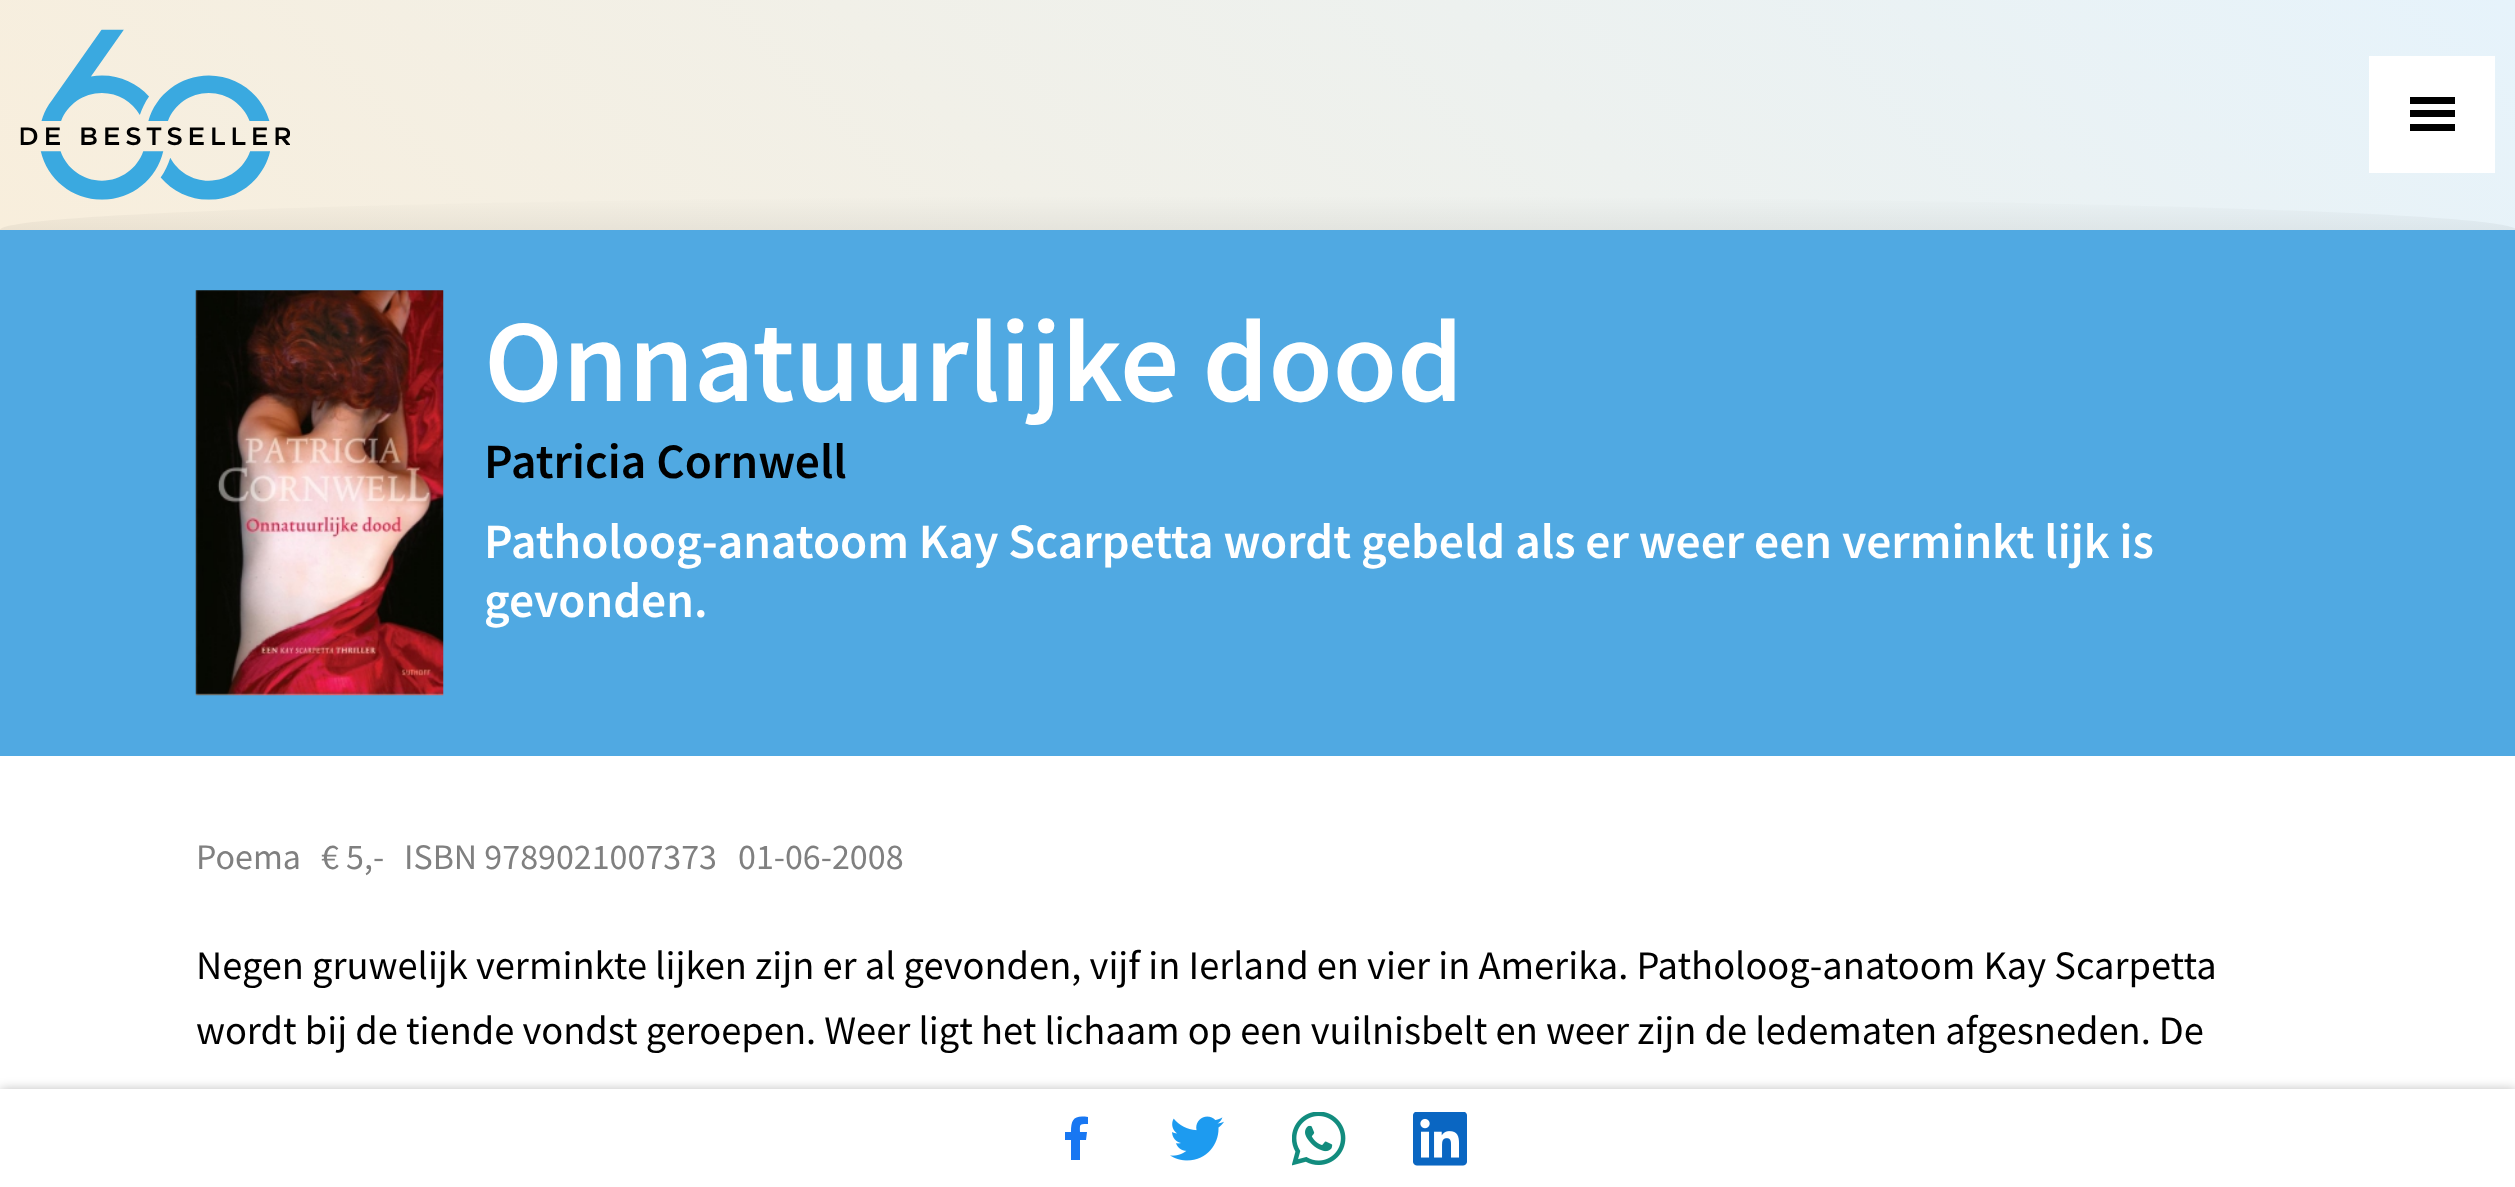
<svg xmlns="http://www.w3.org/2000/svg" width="2515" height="1187">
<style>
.a{font:600 117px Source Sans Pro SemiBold;fill:#fff}
.b{font:600 49.5px Source Sans Pro SemiBold;fill:#000}
.c{font:600 49.5px Source Sans Pro SemiBold;fill:#fff}
.d{font:36px Source Sans Pro;fill:#808080}
.e{font:40.5px Source Sans Pro;fill:#000}
</style>
<defs>
<linearGradient id="g1" gradientUnits="userSpaceOnUse" x1="572" y1="801" x2="1944" y2="-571"><stop offset="0" stop-color="#f8eedc"/><stop offset="1" stop-color="#e6f3fb"/></linearGradient>
<clipPath id="clip1"><path d="M0 0h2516v230H0z"/></clipPath>
<linearGradient id="g2" gradientUnits="userSpaceOnUse" x1="1258" y1="263" x2="1258" y2="196"><stop offset="0" stop-color="#000" stop-opacity="0.1"/><stop offset="1" stop-color="#000" stop-opacity="0"/></linearGradient>
</defs>
<rect width="100%" height="100%" fill="#fff"/>
<path fill="url(#g1)" d="M0 0h2515v230H0z"/>
<image href="1.png" x="20" y="29" width="270" height="171"/>
<path fill="#fff" d="M2369 56h126v117H2369z"/>
<path fill="#000" d="M2410 97h45v7H2410z"/>
<path fill="#000" d="M2410 110h45v7H2410z"/>
<path fill="#000" d="M2410 124h45v7H2410z"/>
<g clip-path="url(#clip1)">
<path fill="url(#g2)" d="M1258 196c694 0 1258 15 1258 34v33h-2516v-33c0-19 563-34 1258-34z"/>
</g>
<path fill="#50a9e2" d="M0 230h2515v526H0z"/>
<image href="2.png" x="195" y="290" width="249" height="406"/>
<path fill="#00000040" filter="blur(5.5px)" d="M0 1089h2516v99H0z"/>
<path fill="#fff" d="M0 1089h2515v98H0z"/>
<path fill="#1877f2" d="M1080 1160h-9v-20h-6v-8h6c0-13 3-17 17-15v7c-9 0-8 0-8 8h7l-1 8h-6z"/>
<image href="3.png" x="1170" y="1116" width="54" height="45"/>
<image href="4.png" x="1292" y="1112" width="54" height="54"/>
<image href="5.png" x="1413" y="1112" width="54" height="54"/>
<text class="a" x="484" y="401">Onnatuurlijke dood</text>
<text class="b" x="484" y="478">Patricia Cornwell</text>
<text class="c" x="484" y="558">Patholoog-anatoom Kay Scarpetta wordt gebeld als er weer een verminkt lijk is</text>
<text class="c" x="484" y="617">gevonden.</text>
<text class="d" x="196" y="869">Poema</text>
<text class="d" x="321" y="869">€ 5,-</text>
<text class="d" x="404" y="869">ISBN 9789021007373</text>
<text class="d" x="738" y="869">01-06-2008</text>
<text class="e" x="196" y="979">Negen gruwelijk verminkte lijken zijn er al gevonden, vijf in Ierland en vier in Amerika. Patholoog-anatoom Kay Scarpetta</text>
<text class="e" x="196" y="1044">wordt bij de tiende vondst geroepen. Weer ligt het lichaam op een vuilnisbelt en weer zijn de ledematen afgesneden. De</text>
</svg>
